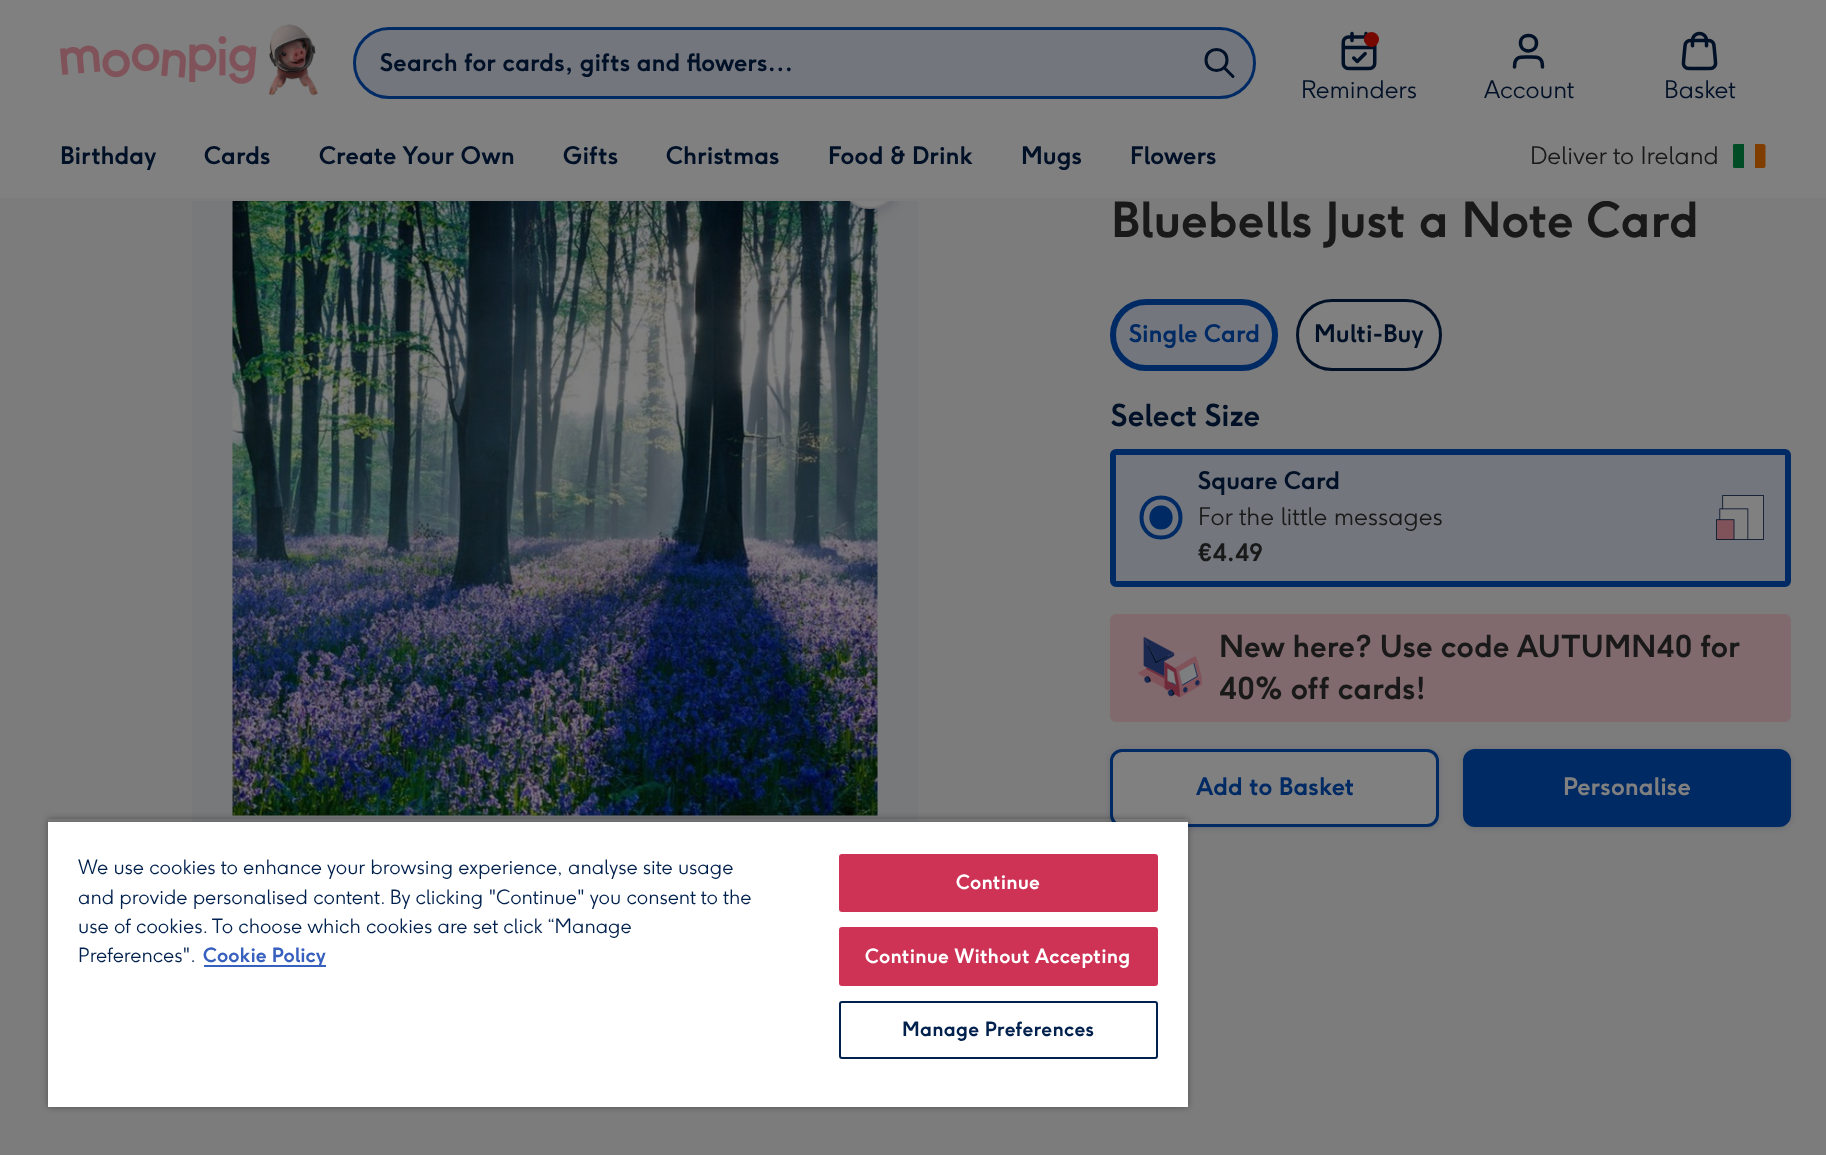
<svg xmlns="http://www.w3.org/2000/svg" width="1826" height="1155">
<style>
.a{font:bold 24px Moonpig;fill:#001027}
.b{font:300 24px Moonpig;fill:#001027}
.c{font:300 24px Moonpig;fill:#191919}
.d{font:bold 48px Moonpig;fill:#191919}
.e{font:bold 24px Moonpig;fill:#002a64}
.f{font:bold 30px Moonpig;fill:#001027}
.g{font:bold 24px Moonpig;fill:#191919}
.h{font:bold 30px Moonpig;fill:#191919}
.i{font:bold 24px Moonpig;fill:#808080}
.j{font:300 19.5px Moonpig;fill:#00204d}
.k{font:bold 19.5px Moonpig;fill:#3860be}
.l{font:bold 19.5px Moonpig;letter-spacing:0.2px;fill:#fff}
.m{font:bold 19.5px Moonpig;letter-spacing:0.2px;fill:#00204d}
</style>
<defs>
<clipPath id="clip1"><path d="M1731 144h36v24H1731z"/></clipPath>
<clipPath id="clip2"><path d="M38 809h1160v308h-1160zm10 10h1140v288h-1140z" clip-rule="evenodd"/></clipPath>
<clipPath id="clip3"><path d="M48 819h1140v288H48z"/></clipPath>
</defs>
<rect width="100%" height="100%" fill="#7c7c7d"/>
<path fill="#78797a" d="M192 201h726v621H192z"/>
<image href="5.png" x="232" y="201" width="646" height="615"/>
<rect fill="#00022726" filter="blur(6px)" x="840" y="153" width="60" height="60" rx="30"/>
<circle fill="#808080" stroke="#747474" stroke-width="2" cx="870" cy="179" r="29"/>
<path fill="#808080" d="M0 0h1826v198H0z"/>
<image href="1.png" x="60" y="36" width="197" height="48"/>
<image href="2.png" x="268" y="24" width="50" height="72"/>
<rect fill="#73777d" stroke="#002a64" stroke-width="3" x="354.5" y="28.5" width="900" height="69" rx="34.5"/>
<path fill="none" stroke="#001027" stroke-width="3" stroke-linecap="round" stroke-linejoin="round" d="M1233 76.5l-9-9m3-7.5c0 14-21 14-21 0c0-14 21-14 21 0"/>
<image href="3.png" x="1341" y="31" width="36" height="40"/>
<circle fill="#760800" cx="1371.5" cy="39.5" r="7.5"/>
<path fill="none" stroke="#001027" stroke-width="3.5" stroke-linecap="round" stroke-linejoin="round" d="M1542.5 67c0-11-5.5-10-14-10c-8.5 0-14-1-14 10m22-24c0 10.5-16 10.5-16 0c0-10 16-10 16 0"/>
<image href="4.png" x="1681" y="31" width="37" height="40"/>
<g clip-path="url(#clip1)">
<path fill="#004d25" d="M1744 168c-2 0-10 .5-11-.5v-23c1-1 9-.5 11-.5z"/>
</g>
<path fill="#803d00" d="M1755 144v24h8.5c1 0 2-1 2-2v-20c0-1-1-2-2-2z"/>
<rect fill="#73777d" stroke="#002a64" stroke-width="6" x="1113" y="302" width="162" height="66" rx="33"/>
<rect fill="#808080" stroke="#001027" stroke-width="3" x="1297.5" y="300.5" width="143" height="69" rx="34.5"/>
<rect fill="#73777d" stroke="#002a64" stroke-width="6" x="1113" y="452" width="675" height="132" rx="3"/>
<path fill="none" stroke="#002a64" stroke-width="4" stroke-linecap="round" stroke-linejoin="round" d="M1161 537.5c26 0 26-40 0-40c-26 0-26 40 0 40"/>
<path fill="#002a64" d="M1161 529.5c15.5 0 15.5-24 0-24c-15.5 0-15.5 24 0 24"/>
<image href="6.png" x="1716" y="495" width="48" height="45"/>
<rect fill="#806a6e" x="1110" y="614" width="681" height="108" rx="6"/>
<image href="7.png" x="1138" y="636" width="64" height="62"/>
<rect fill="#00102726" filter="blur(3px)" x="1110" y="750" width="329" height="78" rx="12"/>
<rect fill="#808080" stroke="#002a64" stroke-width="3" x="1111.5" y="750.5" width="326" height="75" rx="10.5"/>
<rect fill="#00102726" filter="blur(3px)" x="1463" y="750" width="328" height="78" rx="12"/>
<rect fill="#002a64" stroke="#002a64" stroke-width="3" x="1464.5" y="750.5" width="325" height="75" rx="10.5"/>
<g clip-path="url(#clip2)">
<path fill="#00000059" filter="blur(3px)" d="M48 819h1140v288H48z"/>
</g>
<g clip-path="url(#clip3)">
<path fill="#00000033" filter="blur(3px)" d="M48 822h1140v285H48z"/>
</g>
<path fill="#fff" d="M48 822h1140v285H48z"/>
<path fill="#3860be" d="M204 965h122v2H204z"/>
<rect fill="#ce3356" stroke="#ce3356" stroke-width="2" x="840" y="855" width="317" height="56" rx="2"/>
<rect fill="#ce3356" stroke="#ce3356" stroke-width="2" x="840" y="928" width="317" height="57" rx="2"/>
<rect fill="none" stroke="#00204d" stroke-width="2" x="840" y="1002" width="317" height="56" rx="2"/>
<text class="a" x="380" y="71">Search for cards, gifts and flowers…</text>
<text class="b" x="1301" y="98">Reminders</text>
<text class="b" x="1484" y="98">Account</text>
<text class="b" x="1664" y="98">Basket</text>
<text class="a" x="60" y="164">Birthday</text>
<text class="a" x="204" y="164">Cards</text>
<text class="a" x="319" y="164">Create Your Own</text>
<text class="a" x="563" y="164">Gifts</text>
<text class="a" x="666" y="164">Christmas</text>
<text class="a" x="828" y="164">Food &amp; Drink</text>
<text class="a" x="1021" y="164">Mugs</text>
<text class="a" x="1130" y="164">Flowers</text>
<text class="c" x="1530" y="164">Deliver to Ireland</text>
<text class="d" x="1111" y="237">Bluebells Just a Note Card</text>
<path fill="#7c7c7d" d="M838 198h770v3H838z"/>
<text class="e" x="1129" y="342">Single Card</text>
<text class="a" x="1314" y="342">Multi-Buy</text>
<text class="f" x="1111" y="426">Select Size</text>
<text class="a" x="1198" y="489">Square Card</text>
<text class="c" x="1198" y="525">For the little messages</text>
<text class="g" x="1198" y="561">€4.49</text>
<text class="h" x="1219" y="657">New here? Use code AUTUMN40 for</text>
<text class="h" x="1219" y="699">40% off cards!</text>
<text class="e" x="1196" y="795">Add to Basket</text>
<text class="i" x="1563" y="795">Personalise</text>
<text class="j" x="78" y="874">We use cookies to enhance your browsing experience, analyse site usage</text>
<text class="j" x="78" y="904">and provide personalised content. By clicking "Continue" you consent to the</text>
<text class="j" x="78" y="933">use of cookies. To choose which cookies are set click “Manage</text>
<text class="j" x="78" y="962">Preferences".</text>
<text class="k" x="203" y="962">Cookie Policy</text>
<text class="l" x="956" y="889">Continue</text>
<text class="l" x="865" y="963">Continue Without Accepting</text>
<text class="m" x="902" y="1036">Manage Preferences</text>
</svg>
